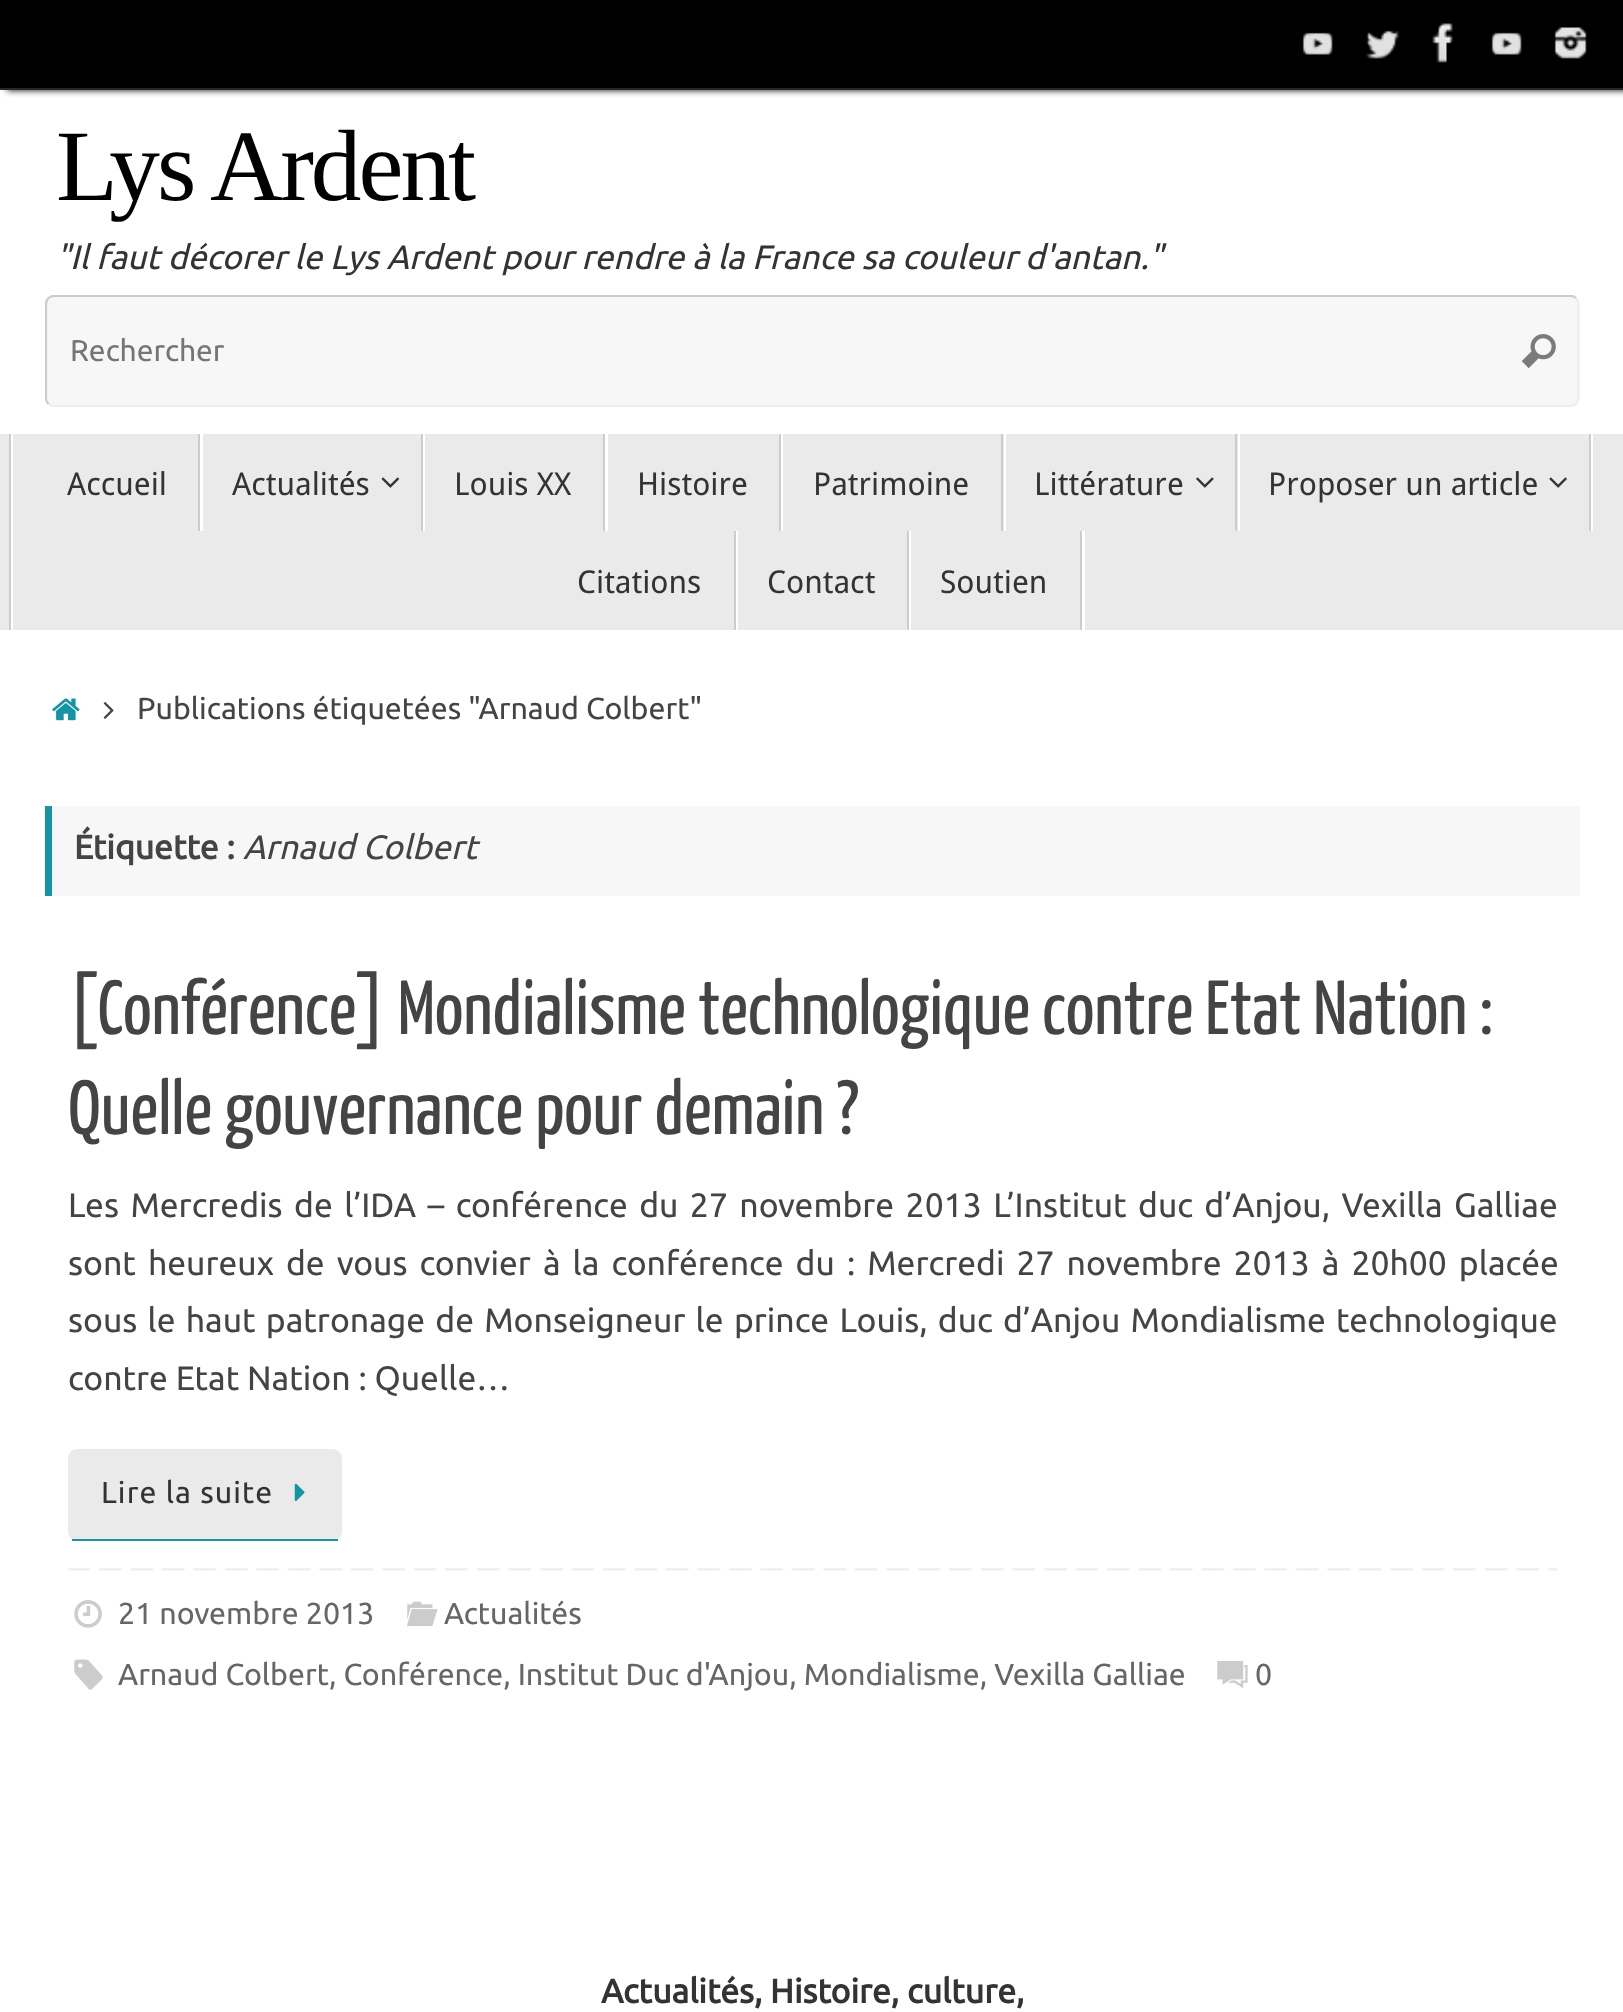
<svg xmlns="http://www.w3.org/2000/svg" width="1623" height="2012">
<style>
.a{font:101.25px Liberation Serif;letter-spacing:-3px;fill:#000}
.b{font:italic 33.75px Ubuntu;fill:#333}
.c{font:30px Ubuntu;fill:#757575}
.d{font:31.5px Droid Sans;fill:#333}
.e{font:30.4px Ubuntu;fill:#444}
.f{font:bold 33.75px Ubuntu;fill:#444}
.g{font:italic 33.75px Ubuntu;fill:#444}
.h{font:76.5px Yanone Kaffeesatz;fill:#444}
.i{font:33.75px Ubuntu;fill:#444}
.j{font:30.4px Ubuntu;letter-spacing:1.1px;fill:#333}
.k{font:30.4px Ubuntu;fill:#666}
.l{font:bold 33.75px Ubuntu;fill:#333}
</style>
<defs>
<clipPath id="clip1"><path d="M45 295h1535v112H45z"/></clipPath>
</defs>
<rect width="100%" height="100%" fill="#fff"/>
<path fill="#000" filter="blur(3.5px)" d="M7 0h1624v90H7z"/>
<path fill="#000" d="M0 0h1623v88H0z"/>
<path fill="#282828" d="M0 88h1623v2H0z"/>
<image href="1.png" x="1302" y="32" width="31" height="23"/>
<image href="2.png" x="1366" y="30" width="33" height="29"/>
<image href="3.png" x="1432" y="23" width="21" height="40"/>
<image href="1.png" x="1491" y="32" width="31" height="23"/>
<image href="4.png" x="1554" y="27" width="33" height="32"/>
<rect fill="#f7f7f7" x="45" y="295" width="1535" height="112" rx="9"/>
<g clip-path="url(#clip1)">
<path fill="none" stroke="#eee" stroke-width="2.2" d="M1576 298c1.5 1.5 2.5 3.5 2.5 6v94c0 2.5-1 4.5-2.5 6c-1.5 1.5-3.5 2-5.5 2h-1516.5c-2 0-4-.5-5.5-2"/>
<path fill="none" stroke="#ccc" stroke-width="2.2" d="M48.5 404c-1.5-1.5-2.5-3.5-2.5-6v-94c0-2.5 1-4.5 2.5-6c1.5-1.5 3.5-2 5.5-2h1516.5c2 0 4 .5 5.5 2"/>
</g>
<image href="5.png" x="1521" y="334" width="35" height="35"/>
<path fill="#eaeaea" d="M0 434h1623v196H0z"/>
<path fill="#ccc" d="M9 434v196h2v-196h1600z"/>
<path fill="#fff" d="M11 434h2v196H11z"/>
<path fill="#fff" d="M38 434h162v97h3v-97z"/>
<path fill="#ccc" d="M198 434h2v97H198z"/>
<path fill="#fff" d="M203 434h220v97h2v-97z"/>
<path fill="#ccc" d="M421 434h2v97H421z"/>
<image href="6.png" x="381" y="477" width="19" height="11"/>
<path fill="#fff" d="M425 434h180v97h3v-97z"/>
<path fill="#ccc" d="M603 434h2v97H603z"/>
<path fill="#fff" d="M608 434h173v97h2v-97z"/>
<path fill="#ccc" d="M779 434h2v97H779z"/>
<path fill="#fff" d="M783 434h221v97h2v-97z"/>
<path fill="#ccc" d="M1001 434h2v97H1001z"/>
<path fill="#fff" d="M1006 434h232v97h2v-97z"/>
<path fill="#ccc" d="M1235 434h2v97H1235z"/>
<image href="7.png" x="1196" y="477" width="18" height="11"/>
<path fill="#fff" d="M1240 434h351v97h2v-97z"/>
<path fill="#ccc" d="M1589 434h2v97H1589z"/>
<image href="8.png" x="1549" y="477" width="18" height="11"/>
<path fill="#fff" d="M736 531h2v99H736z"/>
<path fill="#ccc" d="M734 531h2v99H734z"/>
<path fill="#fff" d="M909 531h2v99H909z"/>
<path fill="#ccc" d="M907 531h2v99H907z"/>
<path fill="#fff" d="M1082 531h3v99H1082z"/>
<path fill="#ccc" d="M1080 531h2v99H1080z"/>
<image href="9.png" x="52" y="698" width="28" height="23"/>
<image href="10.png" x="103" y="702" width="11" height="17"/>
<path fill="#f7f7f7" d="M52 806h1528v90H52z"/>
<path fill="#1693a5" d="M45 806h7v90H45z"/>
<rect fill="#eaeaea" x="68" y="1449" width="274" height="92" rx="9"/>
<path fill="#1693a5" d="M72 1539h266v2H72z"/>
<image href="11.png" x="294" y="1483" width="11" height="18"/>
<image href="12.png" x="68" y="1568" width="1489" height="3"/>
<image href="13.png" x="74" y="1600" width="28" height="28"/>
<image href="14.png" x="407" y="1601" width="31" height="25"/>
<image href="15.png" x="74" y="1659" width="29" height="31"/>
<image href="16.png" x="1217" y="1661" width="31" height="27"/>
<text class="a" x="56" y="200">Lys Ardent</text>
<text class="b" x="56" y="269">"Il faut décorer le Lys Ardent pour rendre à la France sa couleur d'antan."</text>
<text class="c" x="70" y="361">Rechercher</text>
<text class="d" x="67" y="495">Accueil</text>
<text class="d" x="232" y="495">Actualités</text>
<text class="d" x="454" y="495">Louis XX</text>
<text class="d" x="637" y="495">Histoire</text>
<text class="d" x="813" y="495">Patrimoine</text>
<text class="d" x="1034" y="495">Littérature</text>
<text class="d" x="1268" y="495">Proposer un article</text>
<text class="d" x="577" y="593">Citations</text>
<text class="d" x="767" y="593">Contact</text>
<text class="d" x="940" y="593">Soutien</text>
<text class="e" x="137" y="719">Publications étiquetées "Arnaud Colbert"</text>
<text class="f" x="74" y="859">Étiquette :</text>
<text class="g" x="243" y="859">Arnaud Colbert</text>
<text class="h" x="68" y="1034">[Conférence] Mondialisme technologique contre Etat Nation :</text>
<text class="h" x="68" y="1134">Quelle gouvernance pour demain ?</text>
<text class="i" x="68" y="1217" word-spacing="3.6">Les Mercredis de l’IDA – conférence du 27 novembre 2013 L’Institut duc d’Anjou, Vexilla Galliae</text>
<text class="i" x="68" y="1275" word-spacing="4.25">sont heureux de vous convier à la conférence du : Mercredi 27 novembre 2013 à 20h00 placée</text>
<text class="i" x="68" y="1332" word-spacing="2.4">sous le haut patronage de Monseigneur le prince Louis, duc d’Anjou Mondialisme technologique</text>
<text class="i" x="68" y="1390">contre Etat Nation : Quelle…</text>
<text class="j" x="101" y="1503">Lire la suite</text>
<text class="k" x="118" y="1624">21 novembre 2013</text>
<text class="k" x="444" y="1624">Actualités</text>
<text class="k" x="118" y="1685">Arnaud Colbert</text>
<text class="k" x="329" y="1685">, Conférence, Institut Duc d'Anjou, Mondialisme, Vexilla Galliae</text>
<text class="k" x="1255" y="1685">0</text>
<text class="l" x="601" y="2003">Actualités, Histoire, culture,</text>
</svg>
